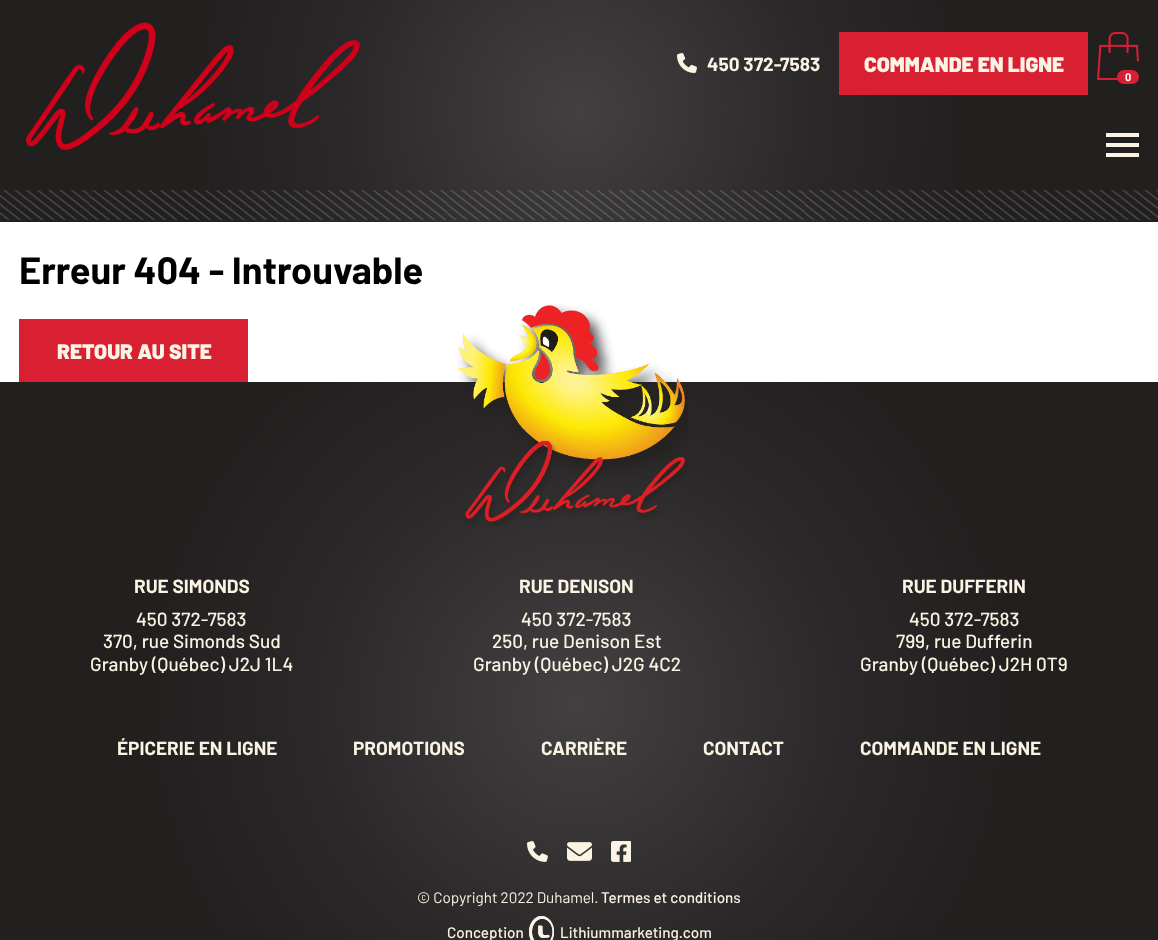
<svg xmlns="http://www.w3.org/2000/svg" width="1158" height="940">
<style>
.a{font:bold 19px Barlow;fill:#fbf3e3}
.b{font:900 21px Barlow;fill:#fbf3e3}
.c{font:bold 11px Barlow;fill:#fff}
.d{font:bold 38px Barlow;fill:#000}
.e{font:500 19px Barlow;fill:#fbf3e3}
.f{font:15.25px Barlow;fill:#fbf3e3}
.g{font:500 15.25px Barlow;fill:#fbf3e3}
</style>
<defs>
<radialGradient id="g1" gradientUnits="userSpaceOnUse" cx="579" cy="111" r="590"><stop offset="0" stop-color="#424041"/><stop offset="0.4" stop-color="#2a2828"/><stop offset="0.66" stop-color="#221f1f"/><stop offset="1" stop-color="#221f1f"/></radialGradient>
<radialGradient id="g2" gradientUnits="userSpaceOnUse" cx="579" cy="704" r="662"><stop offset="0" stop-color="#424041"/><stop offset="0.4" stop-color="#2a2828"/><stop offset="0.66" stop-color="#221f1f"/><stop offset="1" stop-color="#221f1f"/></radialGradient>
</defs>
<rect width="100%" height="100%" fill="#fff"/>
<path fill="url(#g1)" d="M0 0h1158v222H0z"/>
<image href="1.png" x="26" y="22" width="334" height="128"/>
<image href="2.png" x="677" y="53" width="20" height="20"/>
<path fill="#d91f32" d="M839 32h249v63H839z"/>
<image href="3.png" x="1097" y="32" width="42" height="48"/>
<rect fill="#d91f32" x="1117" y="70" width="22" height="14" rx="7"/>
<path fill="#fbf3e3" d="M1106 143h33v4H1106z"/>
<path fill="#fbf3e3" d="M1106 133h33v4H1106z"/>
<path fill="#fbf3e3" d="M1106 153h33v4H1106z"/>
<image href="4.png" x="0" y="190" width="1158" height="30"/>
<path fill="#d91f32" d="M19 319h229v63H19z"/>
<path fill="url(#g2)" d="M0 382h1158v558H0z"/>
<image href="5.png" x="457" y="304" width="231" height="222"/>
<image href="6.png" x="527" y="841" width="21" height="21"/>
<image href="7.png" x="567" y="842" width="25" height="19"/>
<image href="8.png" x="611" y="841" width="20" height="21"/>
<image href="9.png" x="529" y="916" width="25" height="24"/>
<text class="a" x="707" y="71">450 372-7583</text>
<text class="b" x="864" y="72">COMMANDE EN LIGNE</text>
<text class="c" x="1125" y="81">0</text>
<text class="d" x="19" y="284">Erreur 404 - Introuvable</text>
<text class="b" x="57" y="359">RETOUR AU SITE</text>
<text class="a" x="134" y="593">RUE SIMONDS</text>
<text class="e" x="136" y="626">450 372-7583</text>
<text class="e" x="103" y="648">370, rue Simonds Sud</text>
<text class="e" x="90" y="671">Granby (Québec) J2J 1L4</text>
<text class="a" x="519" y="593">RUE DENISON</text>
<text class="e" x="521" y="626">450 372-7583</text>
<text class="e" x="492" y="648">250, rue Denison Est</text>
<text class="e" x="473" y="671">Granby (Québec) J2G 4C2</text>
<text class="a" x="902" y="593">RUE DUFFERIN</text>
<text class="e" x="909" y="626">450 372-7583</text>
<text class="e" x="896" y="648">799, rue Dufferin</text>
<text class="e" x="860" y="671">Granby (Québec) J2H 0T9</text>
<text class="a" x="117" y="755">ÉPICERIE EN LIGNE</text>
<text class="a" x="353" y="755">PROMOTIONS</text>
<text class="a" x="541" y="755">CARRIÈRE</text>
<text class="a" x="703" y="755">CONTACT</text>
<text class="a" x="860" y="755">COMMANDE EN LIGNE</text>
<text class="f" x="417" y="903">© Copyright 2022 Duhamel.</text>
<text class="g" x="601" y="903">Termes et conditions</text>
<text class="g" x="447" y="938">Conception</text>
<text class="g" x="560" y="938">Lithiummarketing.com</text>
</svg>
